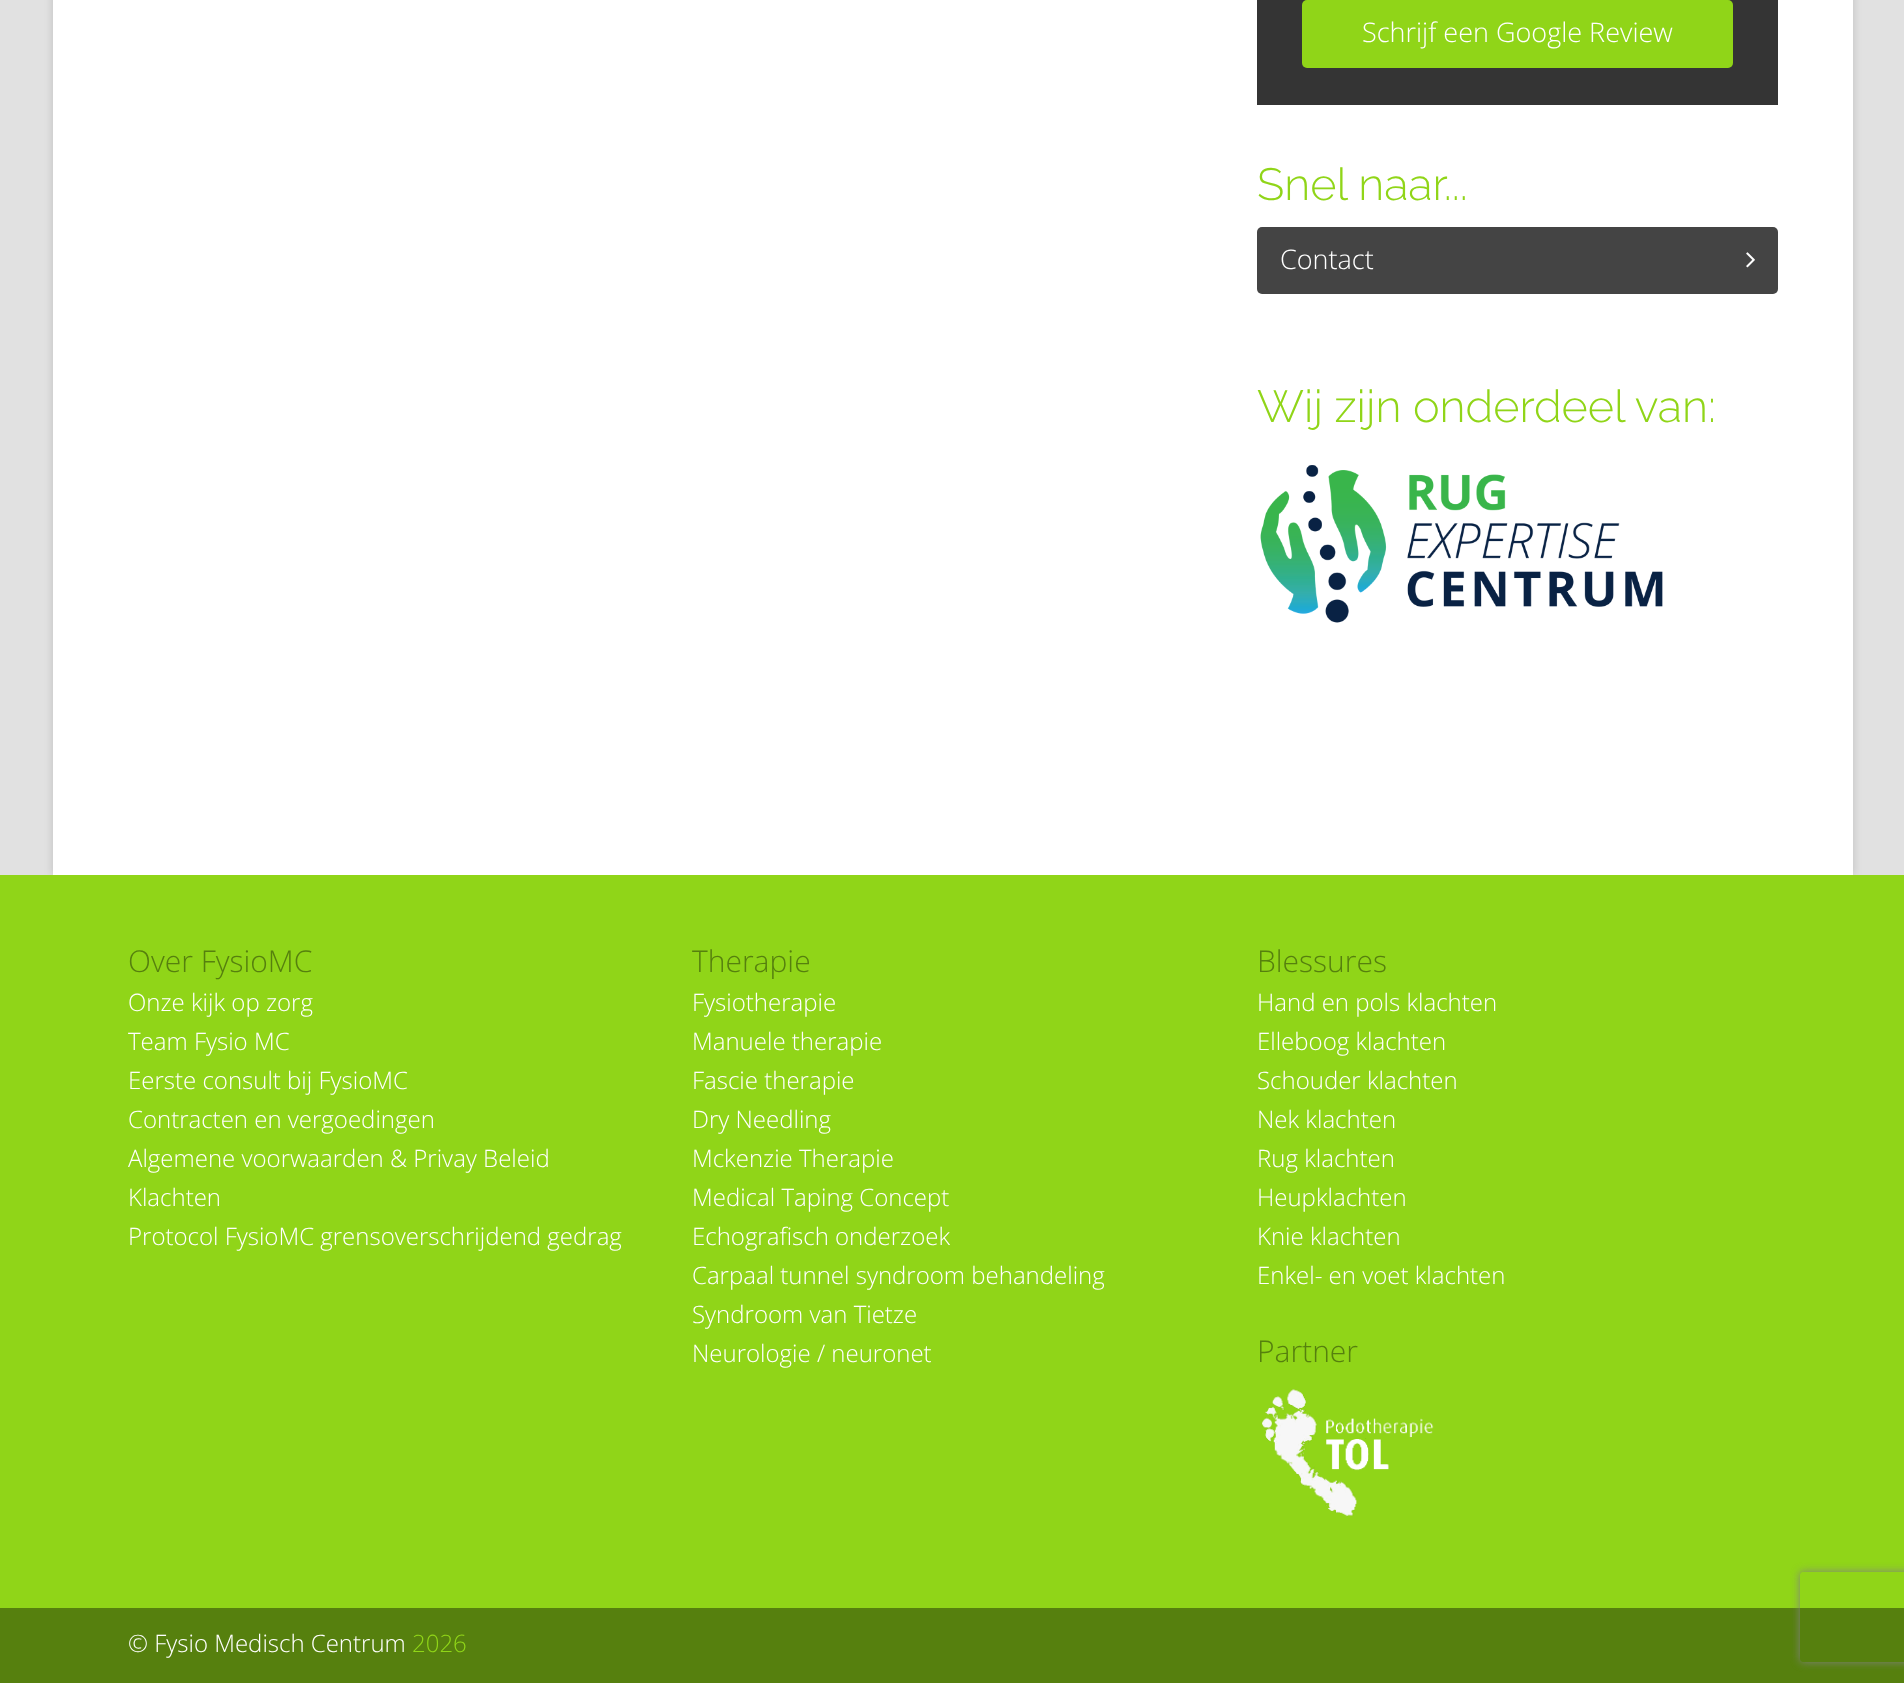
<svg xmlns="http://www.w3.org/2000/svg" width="1904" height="1683">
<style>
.a{font:300 27px Open Sans;fill:#fff}
.b{font:100 45px Raleway;fill:#90d518}
.c{font:300 30px Open Sans;fill:#56800e}
.d{font:300 24px Open Sans;fill:#fff}
.e{font:300 24px Open Sans;fill:#90d518}
</style>
<defs>
<clipPath id="clip1"><path d="M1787 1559h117v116h-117zm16 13h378c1.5 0 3 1.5 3 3v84c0 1.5-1.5 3-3 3h-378c-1.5 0-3-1.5-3-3v-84c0-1.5 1.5-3 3-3z" clip-rule="evenodd"/></clipPath>
</defs>
<rect width="100%" height="100%" fill="#e1e1e1"/>
<path fill="#00000026" filter="blur(4px)" d="M53 -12h1800v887H53z"/>
<path fill="#fff" d="M53 0h1800v875H53z"/>
<path fill="#343434" d="M1257 0h521v105H1257z"/>
<rect fill="#90d518" x="1302" width="431" height="68" rx="5"/>
<rect fill="#444" x="1257" y="227" width="521" height="67" rx="5"/>
<image href="1.png" x="1746" y="252" width="9" height="16"/>
<image href="2.png" x="1260" y="465" width="403" height="158"/>
<path fill="#90d518" d="M0 875h1904v733H0z"/>
<image href="3.png" x="1262" y="1389" width="172" height="128"/>
<path fill="#56800e" d="M0 1608h1904v75H0z"/>
<g clip-path="url(#clip1)">
<rect fill="#808080" filter="blur(4px)" x="1800" y="1572" width="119" height="90" rx="3"/>
</g>
<text class="a" x="1362" y="42">Schrijf een Google Review</text>
<text class="b" x="1257" y="200">Snel naar...</text>
<text class="a" x="1280" y="269">Contact</text>
<text class="b" x="1257" y="422">Wij zijn onderdeel van:</text>
<text class="c" x="128" y="972">Over FysioMC</text>
<text class="d" x="128" y="1011">Onze kijk op zorg</text>
<text class="d" x="128" y="1050">Team Fysio MC</text>
<text class="d" x="128" y="1089">Eerste consult bij FysioMC</text>
<text class="d" x="128" y="1128">Contracten en vergoedingen</text>
<text class="d" x="128" y="1167">Algemene voorwaarden &amp; Privay Beleid</text>
<text class="d" x="128" y="1206">Klachten</text>
<text class="d" x="128" y="1245">Protocol FysioMC grensoverschrijdend gedrag</text>
<text class="c" x="692" y="972">Therapie</text>
<text class="d" x="692" y="1011">Fysiotherapie</text>
<text class="d" x="692" y="1050">Manuele therapie</text>
<text class="d" x="692" y="1089">Fascie therapie</text>
<text class="d" x="692" y="1128">Dry Needling</text>
<text class="d" x="692" y="1167">Mckenzie Therapie</text>
<text class="d" x="692" y="1206">Medical Taping Concept</text>
<text class="d" x="692" y="1245">Echografisch onderzoek</text>
<text class="d" x="692" y="1284">Carpaal tunnel syndroom behandeling</text>
<text class="d" x="692" y="1323">Syndroom van Tietze</text>
<text class="d" x="692" y="1362">Neurologie / neuronet</text>
<text class="c" x="1257" y="972">Blessures</text>
<text class="d" x="1257" y="1011">Hand en pols klachten</text>
<text class="d" x="1257" y="1050">Elleboog klachten</text>
<text class="d" x="1257" y="1089">Schouder klachten</text>
<text class="d" x="1257" y="1128">Nek klachten</text>
<text class="d" x="1257" y="1167">Rug klachten</text>
<text class="d" x="1257" y="1206">Heupklachten</text>
<text class="d" x="1257" y="1245">Knie klachten</text>
<text class="d" x="1257" y="1284">Enkel- en voet klachten</text>
<text class="c" x="1257" y="1362">Partner</text>
<text class="d" x="128" y="1652">© Fysio Medisch Centrum</text>
<text class="e" x="412" y="1652">2026</text>
</svg>
